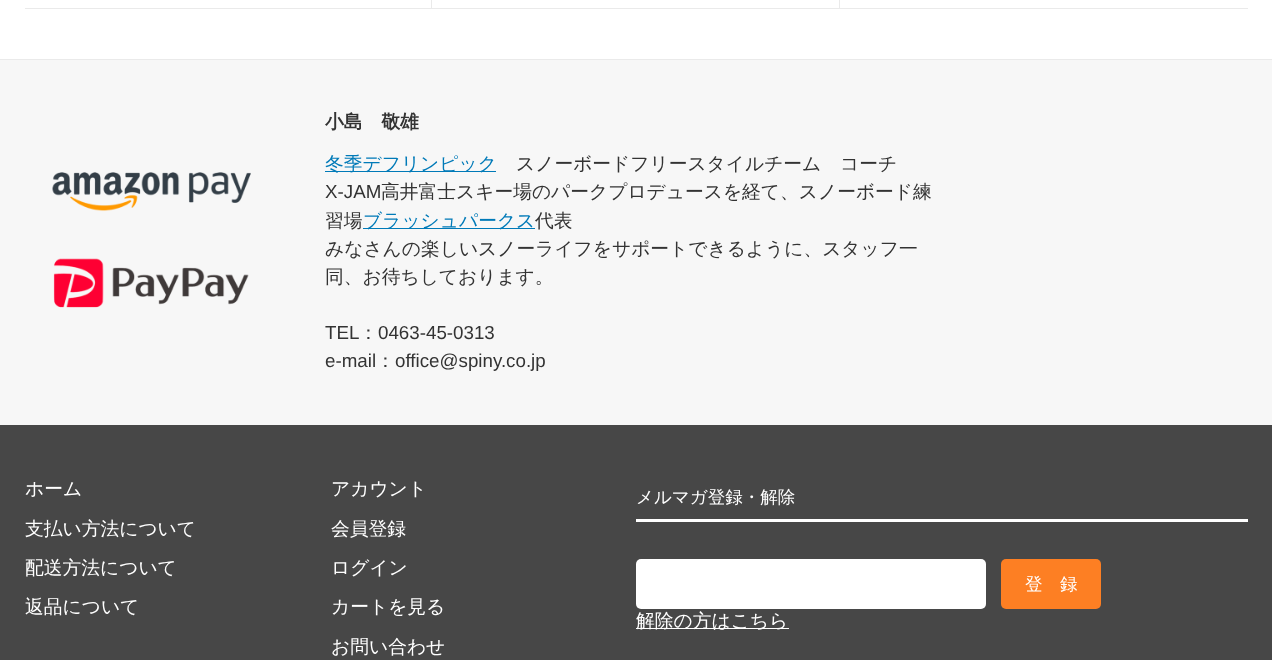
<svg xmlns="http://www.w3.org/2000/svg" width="1272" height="660">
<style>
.a{font:bold 18.75px WenQuanYi Zen Hei;fill:#333}
.b{font:500 18.75px WenQuanYi Zen Hei;fill:#007ab8}
.c{font:500 18.75px WenQuanYi Zen Hei;fill:#333}
.d{font:18.75px Liberation Sans;fill:#333}
.e{font:500 18.75px WenQuanYi Zen Hei;fill:#fff}
.f{font:500 17.5px WenQuanYi Zen Hei;fill:#fff}
</style>
<rect width="100%" height="100%" fill="#fff"/>
<path fill="#eaeaea" d="M25 8h1223v1H25z"/>
<path fill="#eaeaea" d="M431 0h1v9H431z"/>
<path fill="#eaeaea" d="M839 0h1v9H839z"/>
<path fill="#f7f7f7" d="M0 60h1272v365H0z"/>
<path fill="#eaeaea" d="M0 59h1272v1H0z"/>
<image href="1.png" x="52" y="172" width="199" height="136"/>
<path fill="#007ab8" d="M325 171h171v1H325z"/>
<path fill="#007ab8" d="M363 228h172v1H363z"/>
<path fill="#474747" d="M0 425h1272v235H0z"/>
<path fill="#fff" d="M636 519h612v3H636z"/>
<rect fill="#fff" x="636" y="559" width="350" height="50" rx="5"/>
<rect fill="#fd7f23" x="1001" y="559" width="100" height="50" rx="5"/>
<path fill="#fff" d="M636 628h153v1H636z"/>
<text class="a" x="325" y="128">小島　敬雄</text>
<text class="b" x="325" y="170">冬季デフリンピック</text>
<text class="c" x="516" y="170">スノーボードフリースタイルチーム　コーチ</text>
<text class="d" x="325" y="198">X-JAM</text>
<text class="c" x="381" y="198">高井富士スキー場のパークプロデュースを経て、スノーボード練</text>
<text class="c" x="325" y="227">習場</text>
<text class="b" x="363" y="227">ブラッシュパークス</text>
<text class="c" x="535" y="227">代表</text>
<text class="c" x="325" y="255">みなさんの楽しいスノーライフをサポートできるように、スタッフ一</text>
<text class="c" x="325" y="283">同、お待ちしております。</text>
<text class="d" x="325" y="339">TEL</text>
<text class="c" x="359" y="339">：</text>
<text class="d" x="378" y="339">0463-45-0313</text>
<text class="d" x="325" y="367">e-mail</text>
<text class="c" x="376" y="367">：</text>
<text class="d" x="395" y="367">office@spiny.co.jp</text>
<text class="e" x="25" y="495">ホーム</text>
<text class="e" x="25" y="535">支払い方法について</text>
<text class="e" x="25" y="574">配送方法について</text>
<text class="e" x="25" y="613">返品について</text>
<text class="e" x="331" y="495">アカウント</text>
<text class="e" x="331" y="535">会員登録</text>
<text class="e" x="331" y="574">ログイン</text>
<text class="e" x="331" y="613">カートを見る</text>
<text class="e" x="331" y="653">お問い合わせ</text>
<text class="f" x="636" y="503">メルマガ登録・解除</text>
<text class="f" x="1025" y="590">登　録</text>
<text class="e" x="636" y="627">解除の方はこちら</text>
</svg>
